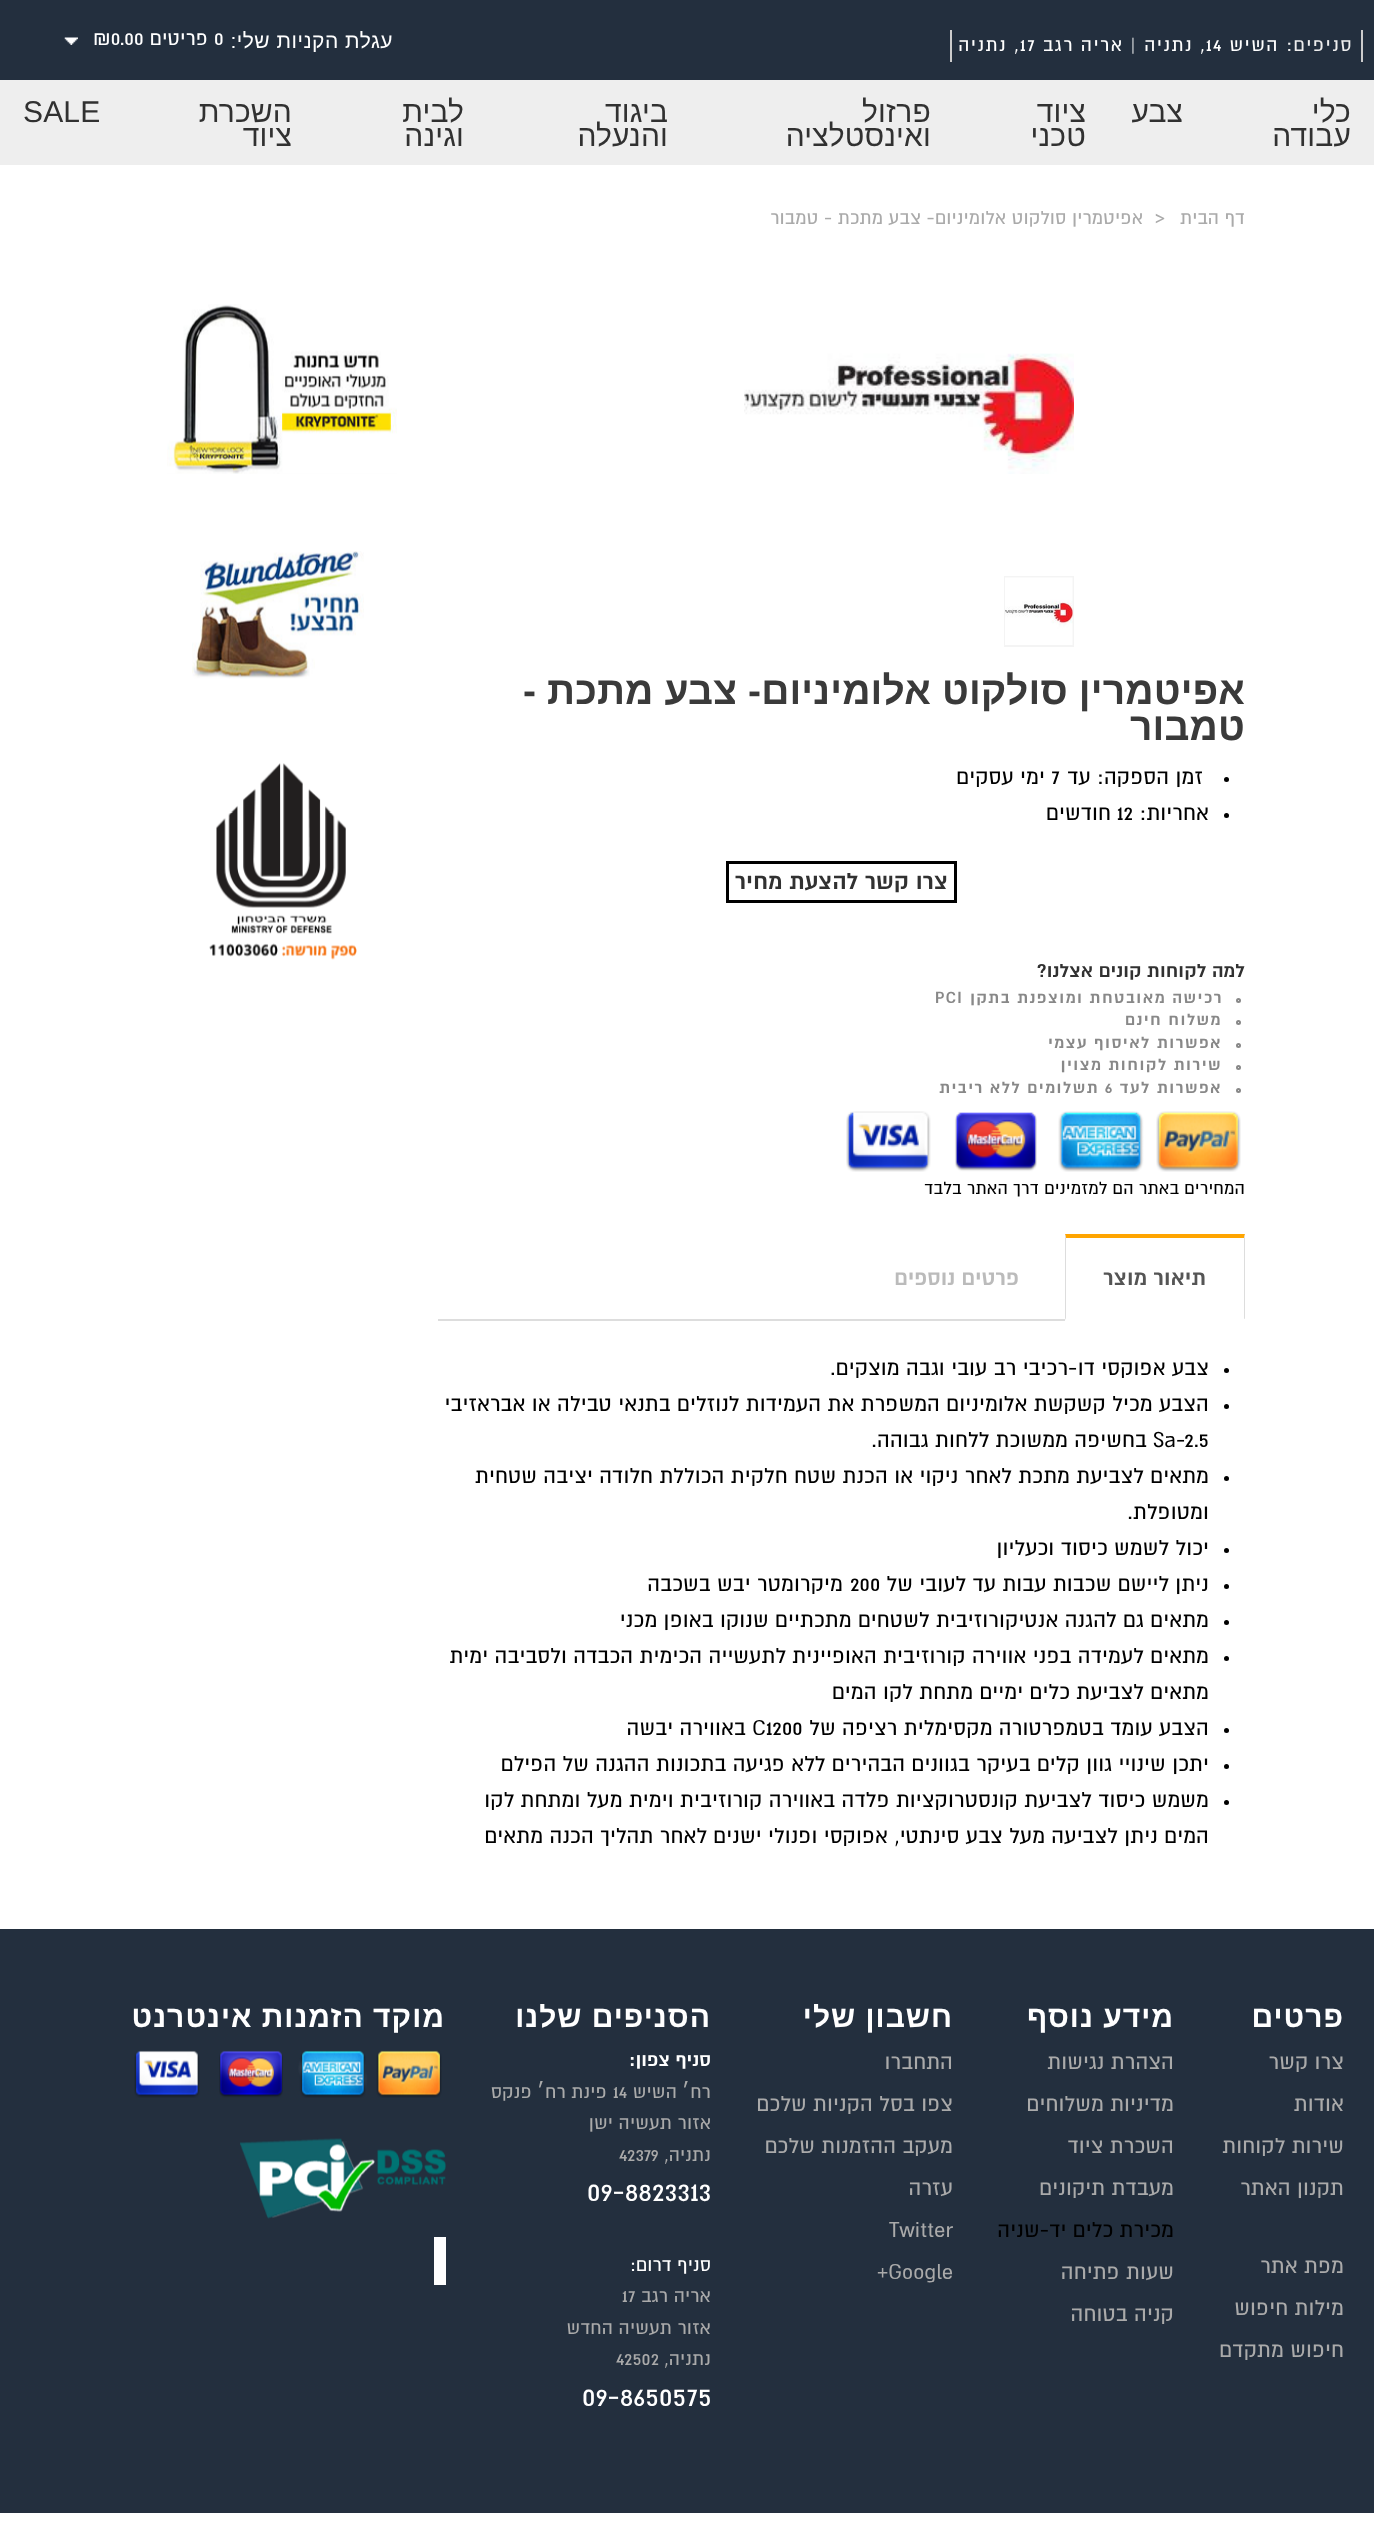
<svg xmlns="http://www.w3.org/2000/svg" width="1374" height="2541">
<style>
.a{font:21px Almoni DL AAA;letter-spacing:1.5px;direction:rtl;fill:#eee}
.b{font:21px Almoni DL AAA;letter-spacing:1.5px;direction:rtl;fill:#fff}
.c{font:21px Almoni DL AAA;letter-spacing:1.5px;fill:#fff}
.d{font:21px Liberation Sans;letter-spacing:0.5px;direction:rtl;fill:#fff}
.e{font:22.5px Almoni DL AAA;letter-spacing:0.15px;fill:#fff}
.f{font:22.5px Almoni DL AAA;letter-spacing:0.15px;direction:rtl;fill:#fff}
.g{font:30px Liberation Sans;letter-spacing:0.15px;direction:rtl;fill:#313131}
.h{font:30px Liberation Sans;letter-spacing:0.15px;fill:#313131}
.i{font:21px Almoni DL AAA;letter-spacing:0.15px;direction:rtl;fill:#aaa}
.j{font:21px Almoni DL AAA;letter-spacing:0.15px;fill:#aaa}
.k{font:bold 39px Liberation Sans;letter-spacing:0.15px;direction:rtl;fill:#3a3a3a}
.l{font:24px Almoni DL AAA;letter-spacing:0.15px;direction:rtl;fill:#000}
.m{font:24px Almoni DL AAA;letter-spacing:0.15px;fill:#000}
.n{font:bold 25.5px Almoni DL AAA;letter-spacing:0.15px;direction:rtl;fill:#313131}
.o{font:bold 21px Almoni DL AAA;letter-spacing:0.15px;direction:rtl;fill:#313131}
.p{font:bold 18px Almoni DL AAA;letter-spacing:1.5px;direction:rtl;fill:#888}
.q{font:bold 18px Almoni DL AAA;letter-spacing:1.5px;fill:#888}
.r{font:19.5px Almoni DL AAA;letter-spacing:0.15px;direction:rtl;fill:#000}
.s{font:bold 24px Almoni DL AAA;letter-spacing:0.15px;direction:rtl;fill:#555}
.t{font:bold 24px Almoni DL AAA;letter-spacing:0.15px;direction:rtl;fill:#bbb}
.u{font:bold 30px Liberation Sans;letter-spacing:1px;direction:rtl;fill:#fff}
.v{font:24px Almoni DL AAA;letter-spacing:0.15px;direction:rtl;fill:#aaa}
.w{font:24px Almoni DL AAA;letter-spacing:0.15px;fill:#aaa}
.x{font:bold 21px Almoni DL AAA;letter-spacing:0.15px;direction:rtl;fill:#fff}
.y{font:21px Liberation Sans;letter-spacing:0.15px;direction:rtl;fill:#aaa}
.z{font:31.5px Almoni DL AAA;letter-spacing:0.15px;fill:#fff}
.a1{font:21px Almoni DL AAA;letter-spacing:0.15px;direction:rtl;fill:#fff}
</style>
<defs>
<clipPath id="clip1"><path d="M30 2004h1314v449H30z"/></clipPath>
</defs>
<rect width="100%" height="100%" fill="#fff"/>
<path fill="#232f3e" d="M0 0h1374v80H0z"/>
<path fill="#ccc" d="M1361 30h2v32H1361z"/>
<path fill="#ccc" d="M950 30h2v32H950z"/>
<image href="1.png" x="64" y="37" width="14" height="8"/>
<path fill="#eee" d="M0 80h1374v85H0z"/>
<image href="2.png" x="744" y="353" width="330" height="121"/>
<path fill="none" stroke="#f4f4f4" stroke-width="2" d="M1005 577h68v69H1005z"/>
<image href="3.png" x="1005" y="577" width="68" height="68"/>
<circle fill="#000" cx="1226.5" cy="779.5" r="2.5"/>
<circle fill="#000" cx="1226.5" cy="815.5" r="2.5"/>
<path fill="none" stroke="#000" stroke-width="3" d="M727.5 862.5h228v39H727.5z"/>
<circle fill="none" stroke="#888" stroke-width="2" cx="1238.5" cy="1000.5" r="1.5"/>
<circle fill="none" stroke="#888" stroke-width="2" cx="1238.5" cy="1022.5" r="1.5"/>
<circle fill="none" stroke="#888" stroke-width="2" cx="1238.5" cy="1045.5" r="1.5"/>
<circle fill="none" stroke="#888" stroke-width="2" cx="1238.5" cy="1067.5" r="1.5"/>
<circle fill="none" stroke="#888" stroke-width="2" cx="1238.5" cy="1090.5" r="1.5"/>
<image href="4.png" x="846" y="1111" width="395" height="61"/>
<path fill="#ffa500" d="M1065 1234h180l-1 4h-178z"/>
<path fill="#ddd" d="M1245 1234v86l-1-2v-80z"/>
<path fill="#fff" d="M1244 1319h1v1H1244z"/>
<path fill="#ddd" d="M1065 1320v-86l1 4v80z"/>
<path fill="#ddd" d="M438 1319h627v2H438z"/>
<circle fill="#000" cx="1226.5" cy="1370.5" r="2.5"/>
<circle fill="#000" cx="1226.5" cy="1406.5" r="2.5"/>
<circle fill="#000" cx="1226.5" cy="1478.5" r="2.5"/>
<circle fill="#000" cx="1226.5" cy="1550.5" r="2.5"/>
<circle fill="#000" cx="1226.5" cy="1586.5" r="2.5"/>
<circle fill="#000" cx="1226.5" cy="1622.5" r="2.5"/>
<circle fill="#000" cx="1226.5" cy="1658.5" r="2.5"/>
<circle fill="#000" cx="1226.5" cy="1730.5" r="2.5"/>
<circle fill="#000" cx="1226.5" cy="1766.5" r="2.5"/>
<circle fill="#000" cx="1226.5" cy="1802.5" r="2.5"/>
<image href="5.png" x="167" y="304" width="230" height="170"/>
<image href="6.png" x="192" y="551" width="172" height="128"/>
<image href="7.png" x="209" y="763" width="148" height="197"/>
<path fill="#232f3e" d="M0 1929h1374v584H0z"/>
<image href="8.png" x="134" y="2050" width="308" height="48"/>
<image href="9.png" x="240" y="2138" width="206" height="81"/>
<path fill="#fff" d="M434 2237h12v48H434z"/>
<text class="a" x="1353" y="51">סניפים:</text>
<text class="b" x="1279" y="51">השיש</text>
<text class="c" x="1206" y="51">14</text>
<text class="b" x="1206" y="51">, נתניה | אריה רגב</text>
<text class="c" x="1020" y="51">17</text>
<text class="b" x="1020" y="51">, נתניה</text>
<text class="d" x="393" y="48">עגלת הקניות שלי:</text>
<text class="e" x="214" y="45">0</text>
<text class="f" x="208" y="45">פריטים</text>
<text class="e" x="93" y="45">₪0.00</text>
<text class="g" x="1351" y="122">כלי</text>
<text class="g" x="1351" y="146">עבודה</text>
<text class="g" x="1183" y="122">צבע</text>
<text class="g" x="1086" y="122">ציוד</text>
<text class="g" x="1086" y="146">טכני</text>
<text class="g" x="931" y="122">פרזול</text>
<text class="g" x="931" y="146">ואינסטלציה</text>
<text class="g" x="668" y="122">ביגוד</text>
<text class="g" x="668" y="146">והנעלה</text>
<text class="g" x="464" y="122">לבית</text>
<text class="g" x="464" y="146">וגינה</text>
<text class="g" x="292" y="122">השכרת</text>
<text class="g" x="292" y="146">ציוד</text>
<text class="h" x="23" y="122">SALE</text>
<text class="i" x="1245" y="224">דף הבית</text>
<text class="j" x="1155" y="224">&gt;</text>
<text class="i" x="1143" y="224">אפיטמרין סולקוט אלומיניום- צבע מתכת - טמבור</text>
<text class="k" x="1245" y="704">אפיטמרין סולקוט אלומיניום- צבע מתכת -</text>
<text class="k" x="1245" y="740">טמבור</text>
<text class="l" x="1203" y="784">זמן הספקה: עד</text>
<text class="m" x="1051" y="784">7</text>
<text class="l" x="1045" y="784">ימי עסקים</text>
<text class="l" x="1209" y="820">אחריות:</text>
<text class="m" x="1117" y="820">12</text>
<text class="l" x="1111" y="820">חודשים</text>
<text class="n" x="948" y="889">צרו קשר להצעת מחיר</text>
<text class="o" x="1245" y="977">למה לקוחות קונים אצלנו?</text>
<text class="p" x="1223" y="1003">רכישה מאובטחת ומוצפנת בתקן</text>
<text class="q" x="935" y="1003">PCI</text>
<text class="p" x="1222" y="1025">משלוח חינם</text>
<text class="p" x="1222" y="1048">אפשרות לאיסוף עצמי</text>
<text class="p" x="1222" y="1070">שירות לקוחות מצוין</text>
<text class="p" x="1222" y="1093">אפשרות לעד</text>
<text class="q" x="1105" y="1093">6</text>
<text class="p" x="1099" y="1093">תשלומים ללא ריבית</text>
<text class="r" x="1245" y="1194">המחירים באתר הם למזמינים דרך האתר בלבד</text>
<text class="s" x="1206" y="1285">תיאור מוצר</text>
<text class="t" x="1019" y="1285">פרטים נוספים</text>
<text class="l" x="1209" y="1375">צבע אפוקסי דו-רכיבי רב עובי וגבה מוצקים.</text>
<text class="l" x="1209" y="1411">הצבע מכיל קשקשת אלומיניום המשפרת את העמידות לנוזלים בתנאי טבילה או אבראזיבי</text>
<text class="m" x="1153" y="1447">Sa-2.5</text>
<text class="l" x="1147" y="1447">בחשיפה ממשוכת ללחות גבוהה.</text>
<text class="l" x="1209" y="1483">מתאים לצביעת מתכת לאחר ניקוי או הכנת שטח חלקית הכוללת חלודה יציבה שטחית</text>
<text class="l" x="1209" y="1519">ומטופלת.</text>
<text class="l" x="1209" y="1555">יכול לשמש כיסוד וכעליון</text>
<text class="l" x="1209" y="1591">ניתן ליישם שכבות עבות עד לעובי של</text>
<text class="m" x="850" y="1591">200</text>
<text class="l" x="843" y="1591">מיקרומטר יבש בשכבה</text>
<text class="l" x="1209" y="1627">מתאים גם להגנה אנטיקורוזיבית לשטחים מתכתיים שנוקו באופן מכני</text>
<text class="l" x="1209" y="1663">מתאים לעמידה בפני אווירה קורוזיבית האופיינית לתעשייה הכימית הכבדה ולסביבה ימית</text>
<text class="l" x="1209" y="1699">מתאים לצביעת כלים ימיים מתחת לקו המים</text>
<text class="l" x="1209" y="1735">הצבע עומד בטמפרטורה מקסימלית רציפה של</text>
<text class="m" x="752" y="1735">C1200</text>
<text class="l" x="746" y="1735">באווירה יבשה</text>
<text class="l" x="1209" y="1771">יתכן שינויי גוון קלים בעיקר בגוונים הבהירים ללא פגיעה בתכונות ההגנה של הפילם</text>
<text class="l" x="1209" y="1807">משמש כיסוד לצביעת קונסטרוקציות פלדה באווירה קורוזיבית וימית מעל ומתחת לקו</text>
<text class="l" x="1209" y="1843">המים ניתן לצביעה מעל צבע סינתטי, אפוקסי ופנולי ישנים לאחר תהליך הכנה מתאים</text>
<text class="u" x="1344" y="2027">פרטים</text>
<text class="v" x="1344" y="2069">צרו קשר</text>
<text class="v" x="1344" y="2111">אודות</text>
<text class="v" x="1344" y="2153">שירות לקוחות</text>
<text class="v" x="1344" y="2195">תקנון האתר</text>
<text class="v" x="1344" y="2273">מפת אתר</text>
<text class="v" x="1344" y="2315">מילות חיפוש</text>
<text class="v" x="1344" y="2357">חיפוש מתקדם</text>
<text class="u" x="1174" y="2027">מידע נוסף</text>
<text class="v" x="1174" y="2069">הצהרת נגישות</text>
<text class="v" x="1174" y="2111">מדיניות משלוחים</text>
<text class="v" x="1174" y="2153">השכרת ציוד</text>
<text class="v" x="1174" y="2195">מעבדת תיקונים</text>
<text class="l" x="1174" y="2237">מכירת כלים יד-שניה</text>
<text class="v" x="1174" y="2279">שעות פתיחה</text>
<text class="v" x="1174" y="2321">קניה בטוחה</text>
<g clip-path="url(#clip1)">
<text class="u" x="953" y="2027">חשבון שלי</text>
</g>
<text class="v" x="953" y="2069">התחברו</text>
<text class="v" x="953" y="2111">צפו בסל הקניות שלכם</text>
<text class="v" x="953" y="2153">מעקב ההזמנות שלכם</text>
<text class="v" x="953" y="2195">עזרה</text>
<text class="w" x="889" y="2237">Twitter</text>
<text class="w" x="877" y="2279">+Google</text>
<g clip-path="url(#clip1)">
<text class="u" x="711" y="2027">הסניפים שלנו</text>
</g>
<text class="x" x="711" y="2066">סניף צפון:</text>
<text class="y" x="690" y="2098">׳</text>
<text class="y" x="545" y="2098">׳</text>
<text class="i" x="711" y="2098">רח</text>
<text class="i" x="677" y="2098">השיש</text>
<text class="j" x="613" y="2098">14</text>
<text class="i" x="607" y="2098">פינת רח</text>
<text class="i" x="532" y="2098">פנקס</text>
<text class="i" x="711" y="2129">אזור תעשיה ישן</text>
<text class="i" x="711" y="2161">נתניה,</text>
<text class="j" x="619" y="2161">42379</text>
<text class="z" x="587" y="2201">09-8823313</text>
<text class="a1" x="711" y="2271">סניף דרום:</text>
<text class="i" x="711" y="2302">אריה רגב</text>
<text class="j" x="622" y="2302">17</text>
<text class="i" x="711" y="2334">אזור תעשיה החדש</text>
<text class="i" x="711" y="2365">נתניה,</text>
<text class="j" x="616" y="2365">42502</text>
<text class="z" x="582" y="2406">09-8650575</text>
<text class="u" x="445" y="2027">מוקד הזמנות אינטרנט</text>
</svg>
